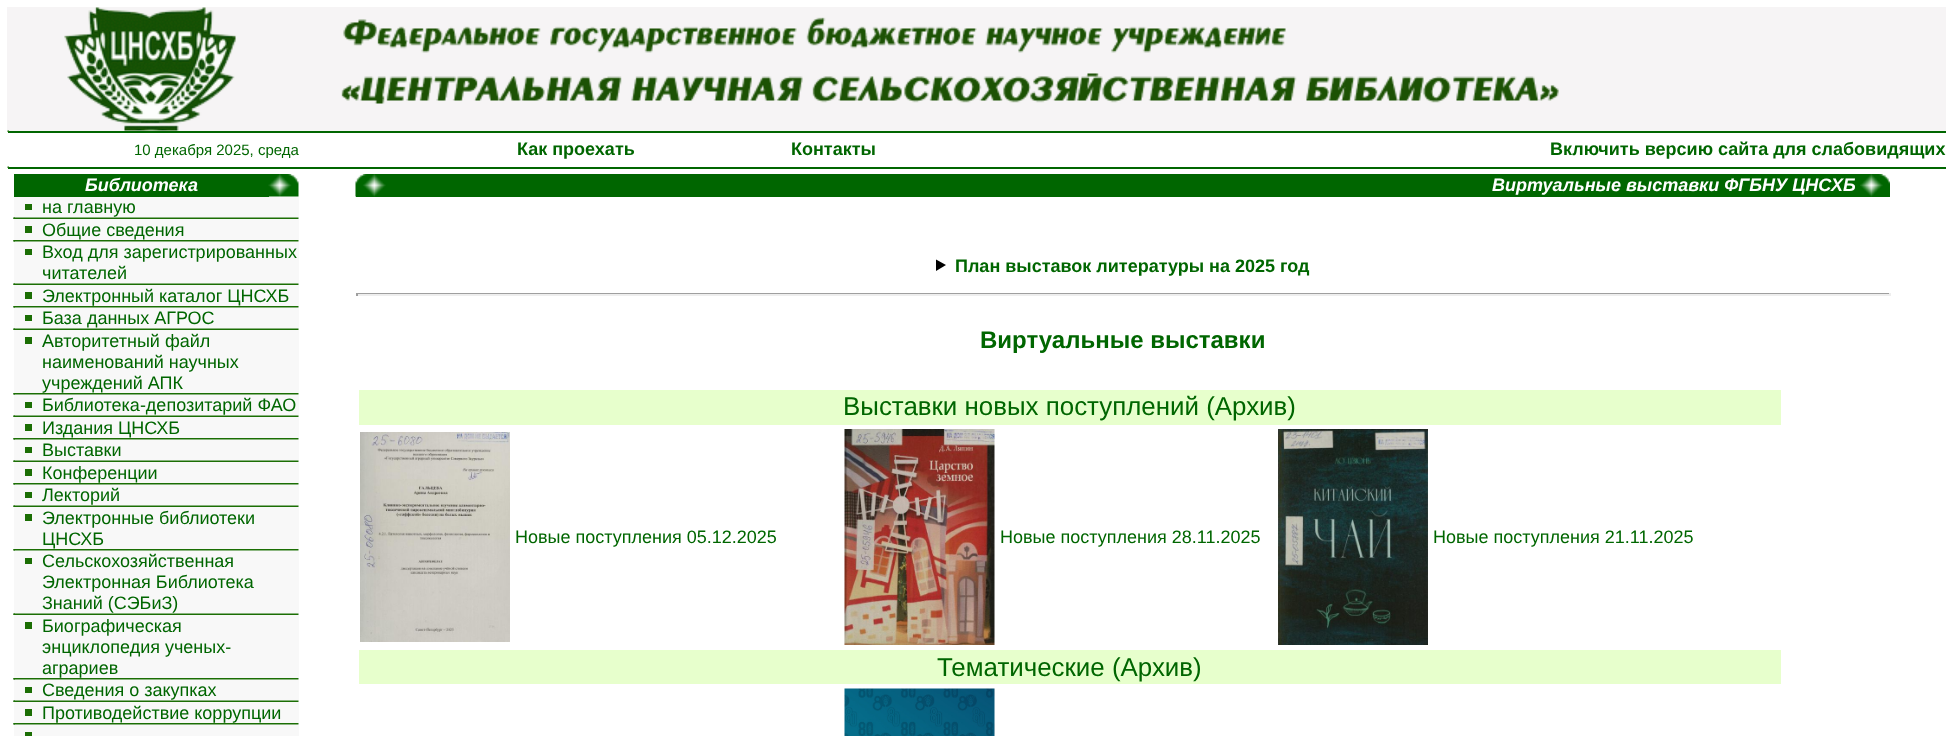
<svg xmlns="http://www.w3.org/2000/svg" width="1953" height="736">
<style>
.a{font:15px Liberation Sans;fill:#060}
.b{font:bold 18px Liberation Sans;fill:#060}
.c{font:italic bold 18px Liberation Sans;fill:#fff}
.d{font:18px Liberation Sans;fill:#060}
.e{font:bold 24px Liberation Sans;fill:#060}
.f{font:25.9px Liberation Sans;fill:#060}
</style>
<rect width="100%" height="100%" fill="#fff"/>
<path fill="#f6f4f5" d="M7 7h1939v124H7z"/>
<image href="1.png" x="64" y="7" width="1495" height="124"/>
<path fill="#060" d="M8 131h1938v2H8z"/>
<image href="2.png" x="7" y="130" width="2" height="2"/>
<path fill="#060" d="M8 167h1938v2H8z"/>
<image href="3.png" x="7" y="166" width="2" height="2"/>
<path fill="#060" d="M14 174h255v23H14z"/>
<image href="4.png" x="268" y="174" width="31" height="23"/>
<path fill="#f8f8f8" d="M14 197h285v21H14z"/>
<path fill="#1b6e04" d="M25 204h7v6H25z"/>
<image href="5.png" x="13" y="217" width="286" height="2"/>
<image href="6.png" x="13" y="217" width="2" height="2"/>
<path fill="#f8f8f8" d="M14 219h285v21H14z"/>
<path fill="#1b6e04" d="M25 226h7v7H25z"/>
<image href="7.png" x="13" y="240" width="286" height="2"/>
<image href="8.png" x="13" y="240" width="2" height="2"/>
<path fill="#f8f8f8" d="M14 242h285v42H14z"/>
<path fill="#1b6e04" d="M25 249h7v6H25z"/>
<image href="5.png" x="13" y="283" width="286" height="2"/>
<image href="6.png" x="13" y="283" width="2" height="2"/>
<path fill="#f8f8f8" d="M14 285h285v21H14z"/>
<path fill="#1b6e04" d="M25 292h7v7H25z"/>
<image href="7.png" x="13" y="306" width="286" height="2"/>
<image href="8.png" x="13" y="306" width="2" height="2"/>
<path fill="#f8f8f8" d="M14 308h285v21H14z"/>
<path fill="#1b6e04" d="M25 315h7v6H25z"/>
<image href="5.png" x="13" y="328" width="286" height="2"/>
<image href="6.png" x="13" y="328" width="2" height="2"/>
<path fill="#f8f8f8" d="M14 330h285v63H14z"/>
<path fill="#1b6e04" d="M25 337h7v7H25z"/>
<image href="7.png" x="13" y="393" width="286" height="2"/>
<image href="8.png" x="13" y="393" width="2" height="2"/>
<path fill="#f8f8f8" d="M14 395h285v21H14z"/>
<path fill="#1b6e04" d="M25 402h7v6H25z"/>
<image href="5.png" x="13" y="415" width="286" height="2"/>
<image href="6.png" x="13" y="415" width="2" height="2"/>
<path fill="#f8f8f8" d="M14 417h285v21H14z"/>
<path fill="#1b6e04" d="M25 424h7v7H25z"/>
<image href="7.png" x="13" y="438" width="286" height="2"/>
<image href="8.png" x="13" y="438" width="2" height="2"/>
<path fill="#f8f8f8" d="M14 440h285v21H14z"/>
<path fill="#1b6e04" d="M25 447h7v6H25z"/>
<image href="5.png" x="13" y="460" width="286" height="2"/>
<image href="6.png" x="13" y="460" width="2" height="2"/>
<path fill="#f8f8f8" d="M14 462h285v21H14z"/>
<path fill="#1b6e04" d="M25 469h7v7H25z"/>
<image href="7.png" x="13" y="483" width="286" height="2"/>
<image href="8.png" x="13" y="483" width="2" height="2"/>
<path fill="#f8f8f8" d="M14 485h285v21H14z"/>
<path fill="#1b6e04" d="M25 492h7v6H25z"/>
<image href="5.png" x="13" y="505" width="286" height="2"/>
<image href="6.png" x="13" y="505" width="2" height="2"/>
<path fill="#f8f8f8" d="M14 507h285v42H14z"/>
<path fill="#1b6e04" d="M25 514h7v7H25z"/>
<image href="7.png" x="13" y="549" width="286" height="2"/>
<image href="8.png" x="13" y="549" width="2" height="2"/>
<path fill="#f8f8f8" d="M14 551h285v63H14z"/>
<path fill="#1b6e04" d="M25 558h7v6H25z"/>
<image href="5.png" x="13" y="613" width="286" height="2"/>
<image href="6.png" x="13" y="613" width="2" height="2"/>
<path fill="#f8f8f8" d="M14 615h285v63H14z"/>
<path fill="#1b6e04" d="M25 622h7v7H25z"/>
<image href="7.png" x="13" y="678" width="286" height="2"/>
<image href="8.png" x="13" y="678" width="2" height="2"/>
<path fill="#f8f8f8" d="M14 680h285v21H14z"/>
<path fill="#1b6e04" d="M25 687h7v6H25z"/>
<image href="5.png" x="13" y="700" width="286" height="2"/>
<image href="6.png" x="13" y="700" width="2" height="2"/>
<path fill="#f8f8f8" d="M14 702h285v21H14z"/>
<path fill="#1b6e04" d="M25 709h7v7H25z"/>
<image href="7.png" x="13" y="723" width="286" height="2"/>
<image href="8.png" x="13" y="723" width="2" height="2"/>
<path fill="#f8f8f8" d="M14 725h285v11H14z"/>
<path fill="#1b6e04" d="M25 732h7v4H25z"/>
<path fill="#060" d="M356 174h1534v23H356z"/>
<image href="9.png" x="355" y="174" width="31" height="23"/>
<image href="10.png" x="1860" y="174" width="30" height="23"/>
<path fill="#000" d="M936 259.5l10 5.5l-10 6z"/>
<path fill="#9f9f9f" d="M356 293h1534v1H356z"/>
<path fill="#eee" d="M1889 293h2v3H1889z"/>
<path fill="#eee" d="M356 294h1534v2H356z"/>
<path fill="#9f9f9f" d="M356 293h2v3H356z"/>
<path fill="#e7ffcc" d="M359 390h1422v35H359z"/>
<image href="11.png" x="360" y="432" width="150" height="210"/>
<image href="12.png" x="844" y="429" width="151" height="216"/>
<image href="13.png" x="1278" y="429" width="150" height="216"/>
<path fill="#e7ffcc" d="M359 650h1422v34H359z"/>
<image href="14.png" x="844" y="688" width="151" height="48"/>
<text class="a" x="134" y="155">10 декабря 2025, среда</text>
<text class="b" x="517" y="155">Как проехать</text>
<text class="b" x="791" y="155">Контакты</text>
<text class="b" x="1550" y="155">Включить версию сайта для слабовидящих</text>
<text class="c" x="85" y="191">Библиотека</text>
<text class="d" x="42" y="213">на главную</text>
<text class="d" x="42" y="236">Общие сведения</text>
<text class="d" x="42" y="258">Вход для зарегистрированных</text>
<text class="d" x="42" y="279">читателей</text>
<text class="d" x="42" y="302">Электронный каталог ЦНСХБ</text>
<text class="d" x="42" y="324">База данных АГРОС</text>
<text class="d" x="42" y="347">Авторитетный файл</text>
<text class="d" x="42" y="368">наименований научных</text>
<text class="d" x="42" y="389">учреждений АПК</text>
<text class="d" x="42" y="411">Библиотека-депозитарий ФАО</text>
<text class="d" x="42" y="434">Издания ЦНСХБ</text>
<text class="d" x="42" y="456">Выставки</text>
<text class="d" x="42" y="479">Конференции</text>
<text class="d" x="42" y="501">Лекторий</text>
<text class="d" x="42" y="524">Электронные библиотеки</text>
<text class="d" x="42" y="545">ЦНСХБ</text>
<text class="d" x="42" y="567">Сельскохозяйственная</text>
<text class="d" x="42" y="588">Электронная Библиотека</text>
<text class="d" x="42" y="609">Знаний (СЭБиЗ)</text>
<text class="d" x="42" y="632">Биографическая</text>
<text class="d" x="42" y="653">энциклопедия ученых-</text>
<text class="d" x="42" y="674">аграриев</text>
<text class="d" x="42" y="696">Сведения о закупках</text>
<text class="d" x="42" y="719">Противодействие коррупции</text>
<text class="c" x="1492" y="191">Виртуальные выставки ФГБНУ ЦНСХБ</text>
<text class="b" x="955" y="272">План выставок литературы на 2025 год</text>
<text class="e" x="980" y="348">Виртуальные выставки</text>
<text class="f" x="843" y="415">Выставки новых поступлений (Архив)</text>
<text class="d" x="515" y="543">Новые поступления 05.12.2025</text>
<text class="d" x="1000" y="543">Новые поступления 28.11.2025</text>
<text class="d" x="1433" y="543">Новые поступления 21.11.2025</text>
<text class="f" x="937" y="676">Тематические (Архив)</text>
</svg>
